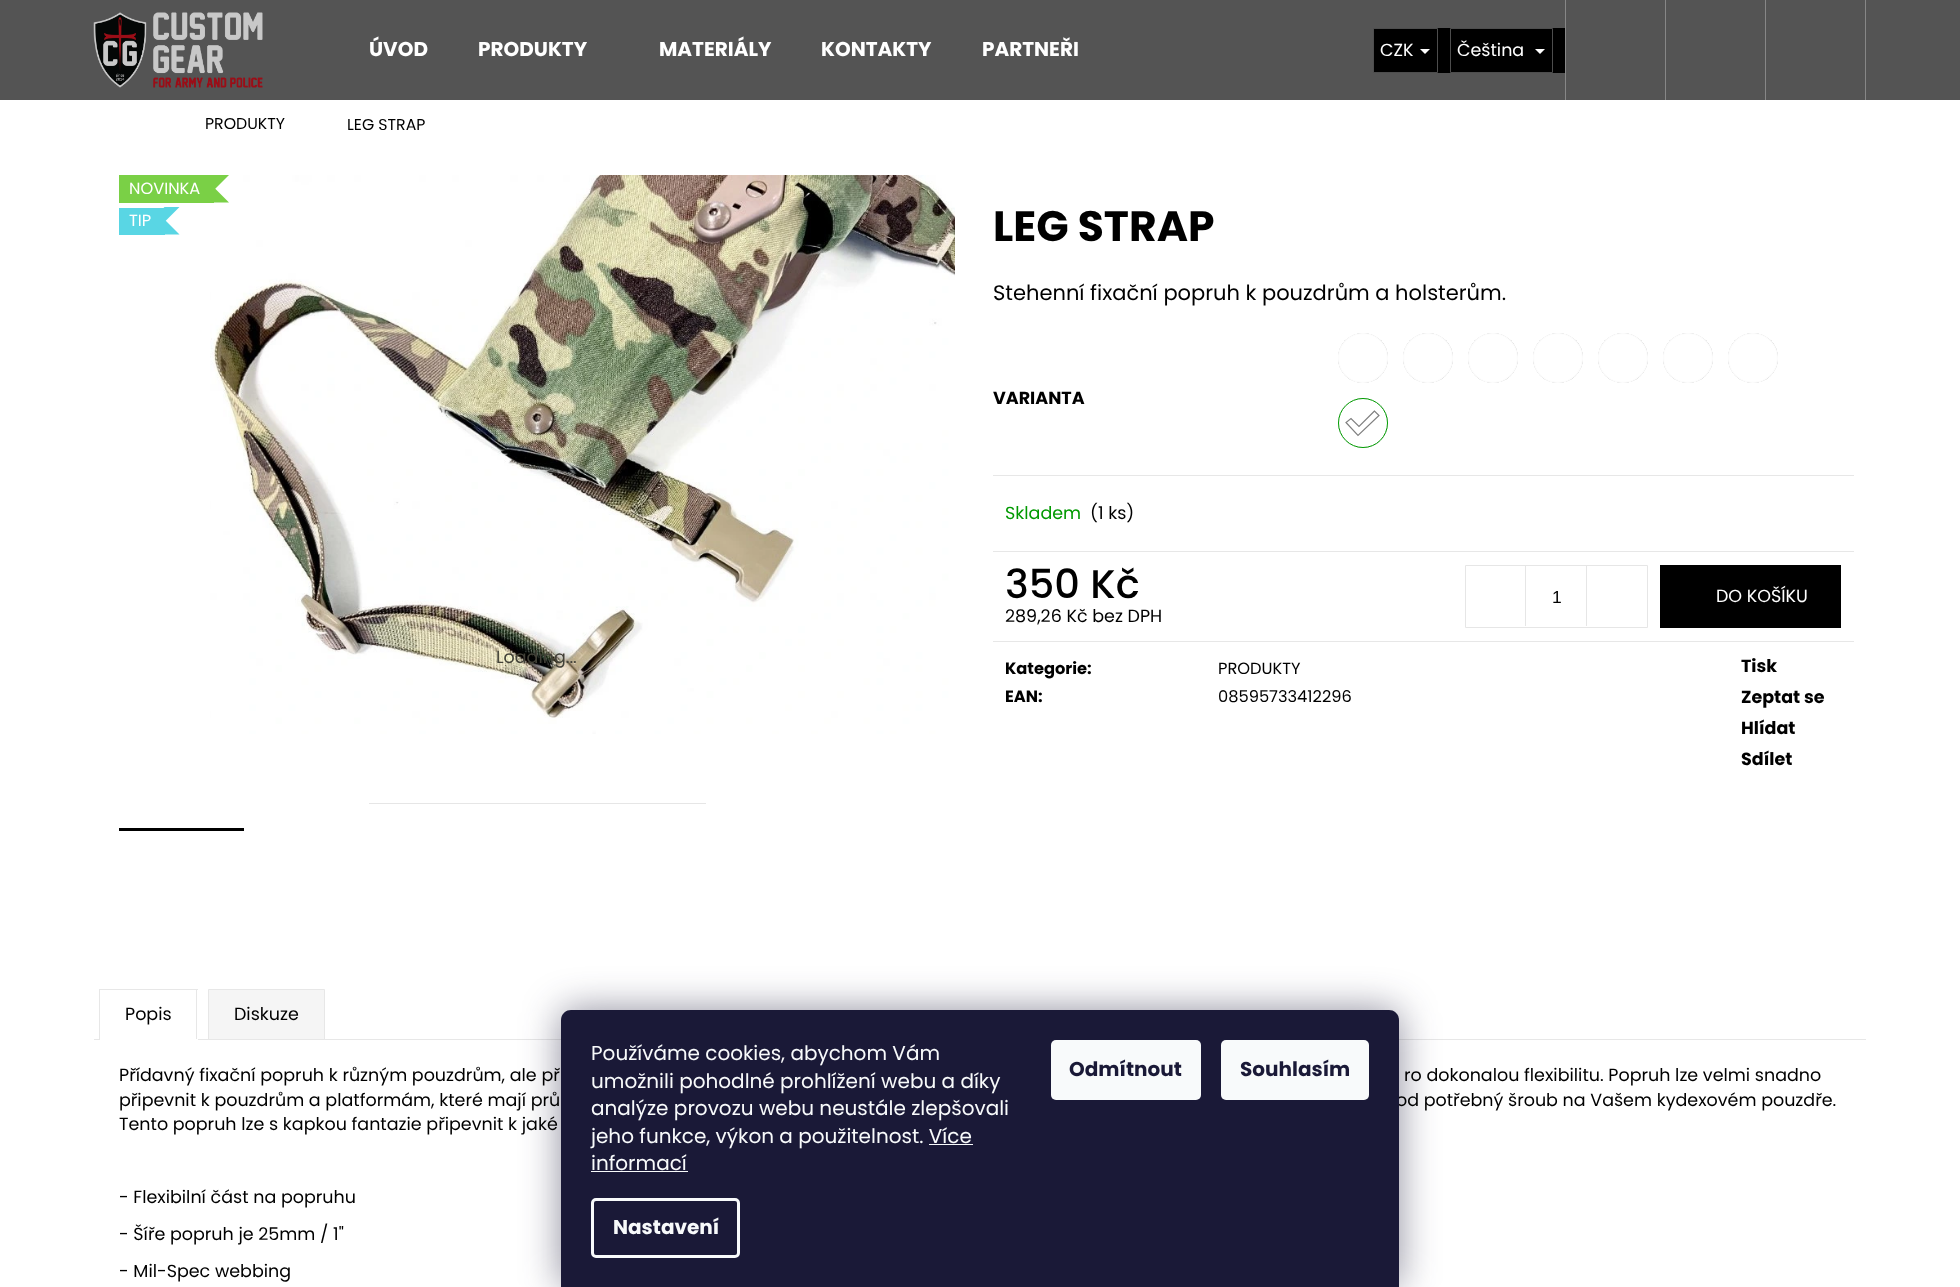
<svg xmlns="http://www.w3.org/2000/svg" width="1960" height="1287">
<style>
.a{font:bold 20px Poppins;fill:#fff}
.b{font:17.5px Poppins;fill:#fff}
.c{font:15.75px Poppins;fill:#000}
.d{font:16.25px Poppins;fill:#fff}
.e{font:17.5px Poppins;fill:#424138}
.f{font:bold 42.5px Poppins;fill:#000}
.g{font:21px Poppins;fill:#000}
.h{font:bold 17.5px Poppins;fill:#000}
.i{font:17.5px Poppins;fill:#009901}
.j{font:17.5px Poppins;fill:#000}
.k{font:500 40px Poppins;fill:#000}
.l{font:17.5px Liberation Sans;fill:#000}
.m{font:bold 16.25px Poppins;fill:#000}
.n{font:16.25px Poppins;fill:#000}
.o{font:20px Poppins;fill:#f8fafb}
.p{font:bold 20px Poppins;fill:#f8fafb}
.q{font:bold 20px Poppins;fill:#1a1937}
</style>
<defs>
<clipPath id="clip1"><path d="M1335 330h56v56h-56zm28 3c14 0 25 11 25 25c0 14-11 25-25 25c-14 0-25-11-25-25c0-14 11-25 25-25z" clip-rule="evenodd"/></clipPath>
<clipPath id="clip2"><path d="M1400 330h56v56h-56zm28 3c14 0 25 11 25 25c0 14-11 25-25 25c-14 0-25-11-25-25c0-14 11-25 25-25z" clip-rule="evenodd"/></clipPath>
<clipPath id="clip3"><path d="M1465 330h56v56h-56zm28 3c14 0 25 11 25 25c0 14-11 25-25 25c-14 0-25-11-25-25c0-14 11-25 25-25z" clip-rule="evenodd"/></clipPath>
<clipPath id="clip4"><path d="M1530 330h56v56h-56zm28 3c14 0 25 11 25 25c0 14-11 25-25 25c-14 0-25-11-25-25c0-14 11-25 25-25z" clip-rule="evenodd"/></clipPath>
<clipPath id="clip5"><path d="M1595 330h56v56h-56zm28 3c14 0 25 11 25 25c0 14-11 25-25 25c-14 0-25-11-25-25c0-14 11-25 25-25z" clip-rule="evenodd"/></clipPath>
<clipPath id="clip6"><path d="M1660 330h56v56h-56zm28 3c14 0 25 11 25 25c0 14-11 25-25 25c-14 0-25-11-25-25c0-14 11-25 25-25z" clip-rule="evenodd"/></clipPath>
<clipPath id="clip7"><path d="M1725 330h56v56h-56zm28 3c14 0 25 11 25 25c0 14-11 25-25 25c-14 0-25-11-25-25c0-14 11-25 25-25z" clip-rule="evenodd"/></clipPath>
<clipPath id="clip8"><path d="M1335 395h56v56h-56zm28 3c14 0 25 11 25 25c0 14-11 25-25 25c-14 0-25-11-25-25c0-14 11-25 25-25z" clip-rule="evenodd"/></clipPath>
</defs>
<rect width="100%" height="100%" fill="#fff"/>
<path fill="#545454" d="M0 0h1960v100H0z"/>
<image href="1.png" x="93" y="12" width="170" height="76"/>
<path fill="#878787" d="M1865 0h1v100H1865z"/>
<path fill="#000" d="M1374 28h191v45H1374z"/>
<path fill="none" stroke="#4d4d4d" d="M1373.5 28.5h64v44H1373.5z"/>
<path fill="#fff" d="M1420 49h10l-5 5z"/>
<path fill="none" stroke="#4d4d4d" d="M1450.5 28.5h102v44H1450.5z"/>
<path fill="#fff" d="M1535 49h10l-5 5z"/>
<path fill="#878787" d="M1565 0h1v100H1565z"/>
<path fill="#878787" d="M1665 0h1v100H1665z"/>
<path fill="#878787" d="M1765 0h1v100H1765z"/>
<image href="2.png" x="210" y="175" width="745" height="559"/>
<path fill="#7ad046" d="M119 175h95v28H119z"/>
<path fill="#59d6e4" d="M119 208h46v27H119z"/>
<path fill="#e6e6e6" d="M369 803h337v1H369z"/>
<path fill="#000" d="M119 828h125v3H119z"/>
<g clip-path="url(#clip1)">
<rect fill="#00000080" filter="blur(0.5px)" x="1338" y="333" width="50" height="50" rx="25"/>
</g>
<circle fill="none" stroke="#fcfcfc" cx="1363" cy="358" r="24.5"/>
<g clip-path="url(#clip2)">
<rect fill="#00000080" filter="blur(0.5px)" x="1403" y="333" width="50" height="50" rx="25"/>
</g>
<circle fill="none" stroke="#fcfcfc" cx="1428" cy="358" r="24.5"/>
<g clip-path="url(#clip3)">
<rect fill="#00000080" filter="blur(0.5px)" x="1468" y="333" width="50" height="50" rx="25"/>
</g>
<circle fill="none" stroke="#fcfcfc" cx="1493" cy="358" r="24.5"/>
<g clip-path="url(#clip4)">
<rect fill="#00000080" filter="blur(0.5px)" x="1533" y="333" width="50" height="50" rx="25"/>
</g>
<circle fill="none" stroke="#fcfcfc" cx="1558" cy="358" r="24.5"/>
<g clip-path="url(#clip5)">
<rect fill="#00000080" filter="blur(0.5px)" x="1598" y="333" width="50" height="50" rx="25"/>
</g>
<circle fill="none" stroke="#fcfcfc" cx="1623" cy="358" r="24.5"/>
<g clip-path="url(#clip6)">
<rect fill="#00000080" filter="blur(0.5px)" x="1663" y="333" width="50" height="50" rx="25"/>
</g>
<circle fill="none" stroke="#fcfcfc" cx="1688" cy="358" r="24.5"/>
<g clip-path="url(#clip7)">
<rect fill="#00000080" filter="blur(0.5px)" x="1728" y="333" width="50" height="50" rx="25"/>
</g>
<circle fill="none" stroke="#fcfcfc" cx="1753" cy="358" r="24.5"/>
<g clip-path="url(#clip8)">
<rect fill="#00000080" filter="blur(0.5px)" x="1338" y="398" width="50" height="50" rx="25"/>
</g>
<circle fill="none" stroke="#009c00" cx="1363" cy="423" r="24.5"/>
<path fill="none" stroke="#808080" stroke-width="1.2" d="M1374.5 411l-15.5 15.5l-8-8l-5 4l12 13l21-20z"/>
<path fill="#e7e7e7" d="M993 475h861v1H993z"/>
<path fill="#e7e7e7" d="M993 551h861v1H993z"/>
<path fill="#e7e7e7" d="M993 641h861v1H993z"/>
<path fill="none" stroke="#e6e6e6" d="M1465.5 565.5h182v62H1465.5z"/>
<path fill="#e6e6e6" d="M1525 566h1v60H1525z"/>
<path fill="#e6e6e6" d="M1586 566h1v60H1586z"/>
<path fill="#000" d="M1660 565h181v63H1660z"/>
<path fill="#e7e7e7" d="M94 1039h1772v1H94z"/>
<path fill="#e7e7e7" d="M99 989h99v1H99z"/>
<path fill="#e7e7e7" d="M196 989h1v51H196z"/>
<path fill="#fff" d="M99 1039h99v1H99z"/>
<path fill="#e7e7e7" d="M99 989h1v51H99z"/>
<path fill="#f5f5f5" stroke="#e7e7e7" d="M208.5 989.5h116v50H208.5z"/>
<rect fill="#1b193980" filter="blur(19px)" x="561" y="1010" width="838" height="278" rx="10"/>
<text class="a" x="369" y="56">ÚVOD</text>
<text class="a" x="478" y="56">PRODUKTY</text>
<text class="a" x="659" y="56">MATERIÁLY</text>
<text class="a" x="821" y="56">KONTAKTY</text>
<text class="a" x="982" y="56">PARTNEŘI</text>
<text class="b" x="1380" y="56">CZK</text>
<text class="b" x="1457" y="56">Čeština</text>
<text class="c" x="205" y="129">PRODUKTY</text>
<text class="c" x="347" y="130">LEG STRAP</text>
<text class="d" x="129" y="194">NOVINKA</text>
<path fill="#7ad046" d="M199 187.5h15l15 15h-15z"/>
<path fill="#7ad046" d="M214 175h15l-15 15h-15z"/>
<text class="d" x="129" y="226">TIP</text>
<path fill="#59d6e4" d="M149.5 219.5h15l15 15h-15z"/>
<path fill="#59d6e4" d="M164.5 207h15l-15 15h-15z"/>
<text class="e" x="496" y="663">Loading...</text>
<text class="f" x="993" y="241">LEG STRAP</text>
<text class="g" x="993" y="300">Stehenní fixační popruh k pouzdrům a holsterům.</text>
<text class="h" x="993" y="404">VARIANTA</text>
<text class="i" x="1005" y="519">Skladem</text>
<text class="j" x="1090" y="519">(1 ks)</text>
<text class="k" x="1005" y="598">350 Kč</text>
<text class="j" x="1005" y="622">289,26 Kč bez DPH</text>
<text class="l" x="1552" y="603">1</text>
<text class="b" x="1716" y="602">DO KOŠÍKU</text>
<text class="m" x="1005" y="674">Kategorie:</text>
<text class="n" x="1218" y="674">PRODUKTY</text>
<text class="m" x="1005" y="702">EAN:</text>
<text class="n" x="1218" y="702">08595733412296</text>
<text class="h" x="1741" y="672">Tisk</text>
<text class="h" x="1741" y="703">Zeptat se</text>
<text class="h" x="1741" y="734">Hlídat</text>
<text class="h" x="1741" y="765">Sdílet</text>
<text class="j" x="125" y="1020">Popis</text>
<text class="j" x="234" y="1020">Diskuze</text>
<text class="j" x="119" y="1081">Přídavný fixační popruh k různým pouzdrům, ale př</text>
<text class="j" x="1404" y="1081">ro dokonalou flexibilitu. Popruh lze velmi snadno</text>
<text class="j" x="119" y="1106">připevnit k pouzdrům a platformám, které mají prů</text>
<text class="j" x="1396" y="1106">od potřebný šroub na Vašem kydexovém pouzdře.</text>
<text class="j" x="119" y="1130">Tento popruh lze s kapkou fantazie připevnit k jaké</text>
<text class="j" x="119" y="1203">- Flexibilní část na popruhu</text>
<text class="j" x="119" y="1240">- Šíře popruh je 25mm / 1"</text>
<text class="j" x="119" y="1277">- Mil-Spec webbing</text>
<path fill="#1a1937" d="M571 1010h818c5.5 0 10 4.5 10 10v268h-838v-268c0-5.5 4.5-10 10-10z"/>
<text class="o" x="591" y="1060">Používáme cookies, abychom Vám</text>
<text class="o" x="591" y="1088">umožnili pohodlné prohlížení webu a díky</text>
<text class="o" x="591" y="1115">analýze provozu webu neustále zlepšovali</text>
<text class="o" x="591" y="1143">jeho funkce, výkon a použitelnost. Více</text>
<text class="o" x="591" y="1170">informací</text>
<path fill="#f8fafb" d="M929 1144h44v1H929z"/>
<path fill="#f8fafb" d="M591 1171h97v1H591z"/>
<rect fill="none" stroke="#f8fafb" stroke-width="3" x="592.5" y="1199.5" width="146" height="57" rx="3.5"/>
<text class="p" x="613" y="1234">Nastavení</text>
<rect fill="#f8fafb" x="1051" y="1040" width="150" height="60" rx="5"/>
<text class="q" x="1069" y="1076">Odmítnout</text>
<rect fill="#f8fafb" x="1221" y="1040" width="148" height="60" rx="5"/>
<text class="q" x="1240" y="1076">Souhlasím</text>
</svg>
